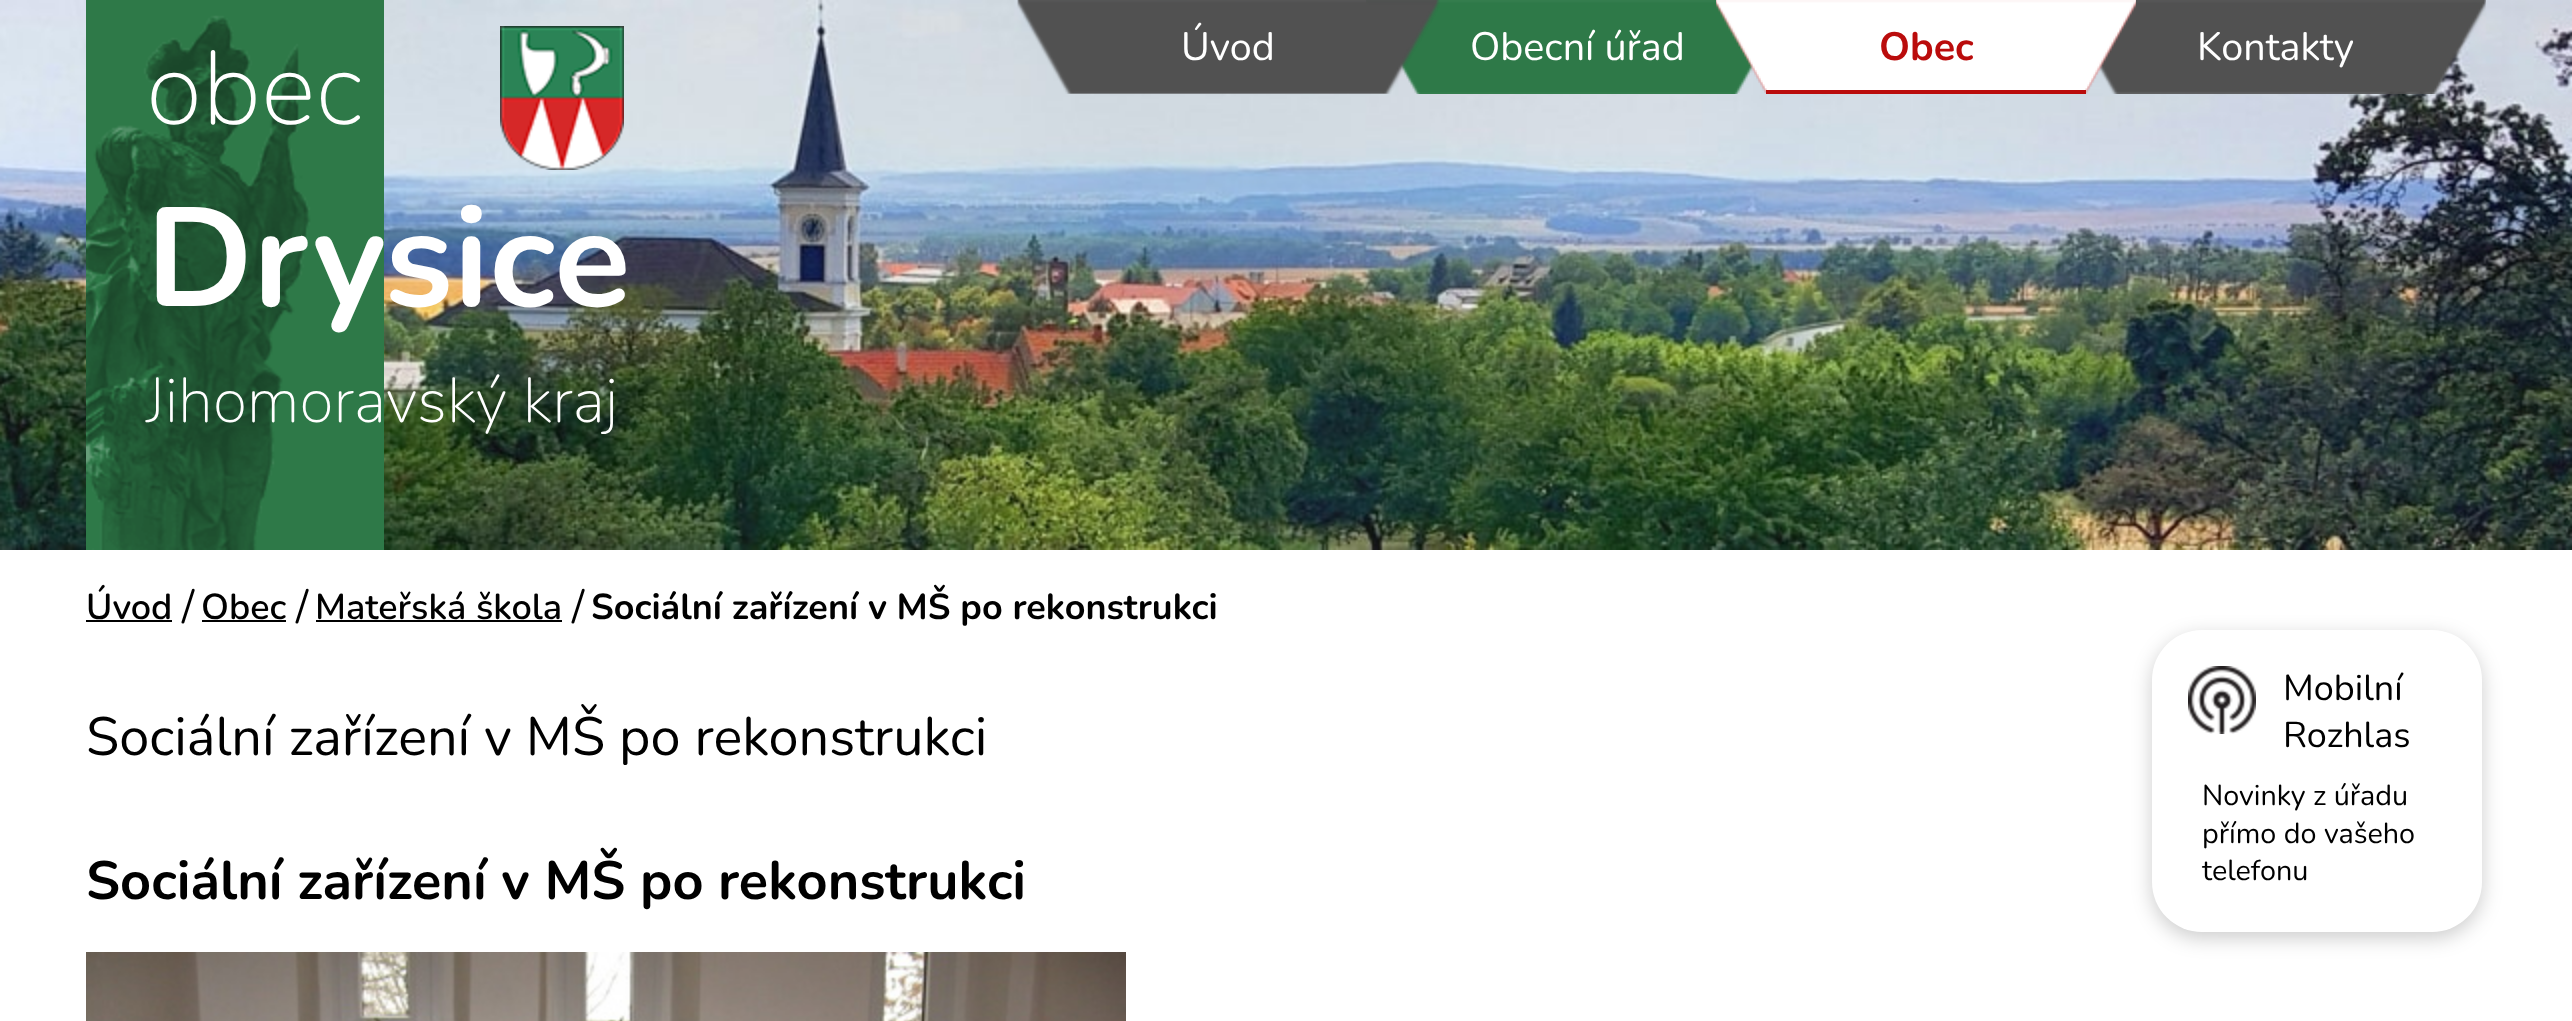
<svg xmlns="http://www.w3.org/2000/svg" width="2572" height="1021">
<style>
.a{font:200 104px Nunito;fill:#fff}
.b{font:bold 140.5px Nunito;fill:#fff}
.c{font:200 63px Nunito;fill:#fff}
.d{font:39.5px Nunito;fill:#fff}
.e{font:bold 39.5px Nunito;fill:#ba0c0c}
.f{font:600 36px Nunito;fill:#000}
.g{font:43px Nunito;fill:#000}
.h{font:bold 36px Nunito;fill:#000}
.i{font:54px Nunito;fill:#000}
.j{font:bold 54px Nunito;fill:#000}
.k{font:36px Nunito;fill:#000}
.l{font:28.75px Nunito;fill:#000}
</style>
<rect width="100%" height="100%" fill="#fff"/>
<image href="1.png" x="0" y="0" width="2572" height="550"/>
<image href="2.png" x="86" y="0" width="298" height="550"/>
<image href="3.png" x="500" y="26" width="124" height="144"/>
<image href="5.png" x="1366" y="0" width="422" height="94"/>
<image href="4.png" x="1017" y="0" width="423" height="94"/>
<image href="8.png" x="2064" y="0" width="422" height="94"/>
<image href="6.png" x="1716" y="0" width="420" height="94"/>
<image href="7.png" x="1716" y="0" width="420" height="94"/>
<path fill="#ba0c0c" d="M1766 90h320v4H1766z"/>
<path fill="#000" d="M86 620h86v2H86z"/>
<path fill="#000" d="M202 620h84v2H202z"/>
<path fill="#000" d="M316 620h246v2H316z"/>
<image href="9.png" x="86" y="952" width="1040" height="69"/>
<rect fill="#00000033" filter="blur(10px)" x="2152" y="636" width="330" height="302" rx="50"/>
<rect fill="#fff" x="2152" y="630" width="330" height="302" rx="50"/>
<image href="10.png" x="2188" y="666" width="68" height="68"/>
<text class="a" x="146" y="124">obec</text>
<text class="b" x="146" y="306">Drysice</text>
<text class="c" x="146" y="422">Jihomoravský kraj</text>
<text class="d" x="1181" y="60">Úvod</text>
<text class="d" x="1470" y="60">Obecní úřad</text>
<text class="e" x="1879" y="60">Obec</text>
<text class="d" x="2197" y="60">Kontakty</text>
<text class="f" x="86" y="619">Úvod</text>
<text class="g" x="182" y="621">/</text>
<text class="f" x="201" y="619">Obec</text>
<text class="g" x="296" y="621">/</text>
<text class="f" x="315" y="619">Mateřská škola</text>
<text class="g" x="572" y="621">/</text>
<text class="h" x="591" y="619">Sociální zařízení v MŠ po rekonstrukci</text>
<text class="i" x="86" y="755">Sociální zařízení v MŠ po rekonstrukci</text>
<text class="j" x="86" y="899">Sociální zařízení v MŠ po rekonstrukci</text>
<text class="k" x="2283" y="700">Mobilní</text>
<text class="k" x="2283" y="747">Rozhlas</text>
<text class="l" x="2202" y="805">Novinky z úřadu</text>
<text class="l" x="2202" y="843">přímo do vašeho</text>
<text class="l" x="2202" y="880">telefonu</text>
</svg>
